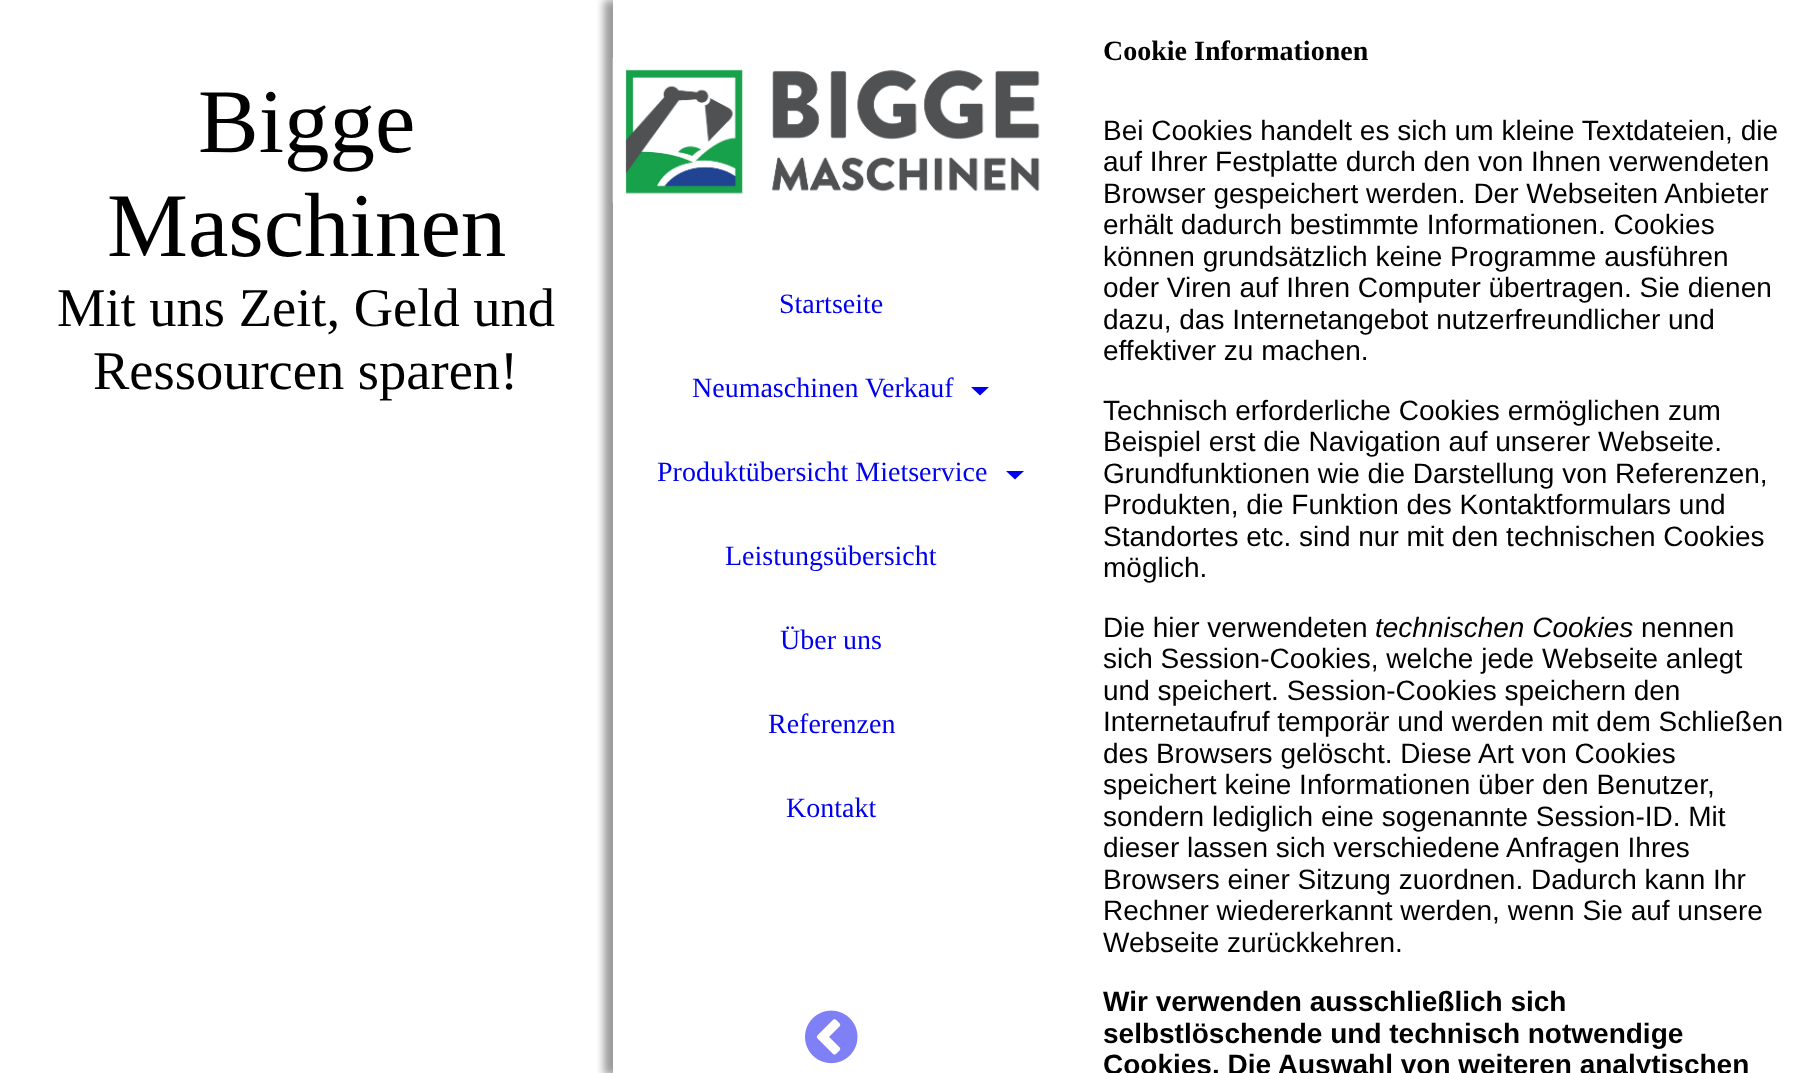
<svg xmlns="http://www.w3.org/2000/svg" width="1820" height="1073">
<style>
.a{font:91px Liberation Serif;fill:#000}
.b{font:54.5px Liberation Serif;fill:#000}
.c{font:bold 28px Liberation Serif;fill:#000}
.d{font:28px Liberation Sans;fill:#000}
.e{font:italic 28px Liberation Sans;fill:#000}
.f{font:bold 28px Liberation Sans;fill:#000}
.g{font:28px Liberation Serif;fill:#00e}
</style>
<defs>
<clipPath id="clip1"><path d="M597 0h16v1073H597z"/></clipPath>
</defs>
<rect width="100%" height="100%" fill="#fff"/>
<g clip-path="url(#clip1)">
<path fill="#00000066" filter="blur(4.5px)" d="M604 0h437v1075H604z"/>
</g>
<image href="1.png" x="612" y="58" width="428" height="145"/>
<path fill="#00e" d="M971 387h18l-9 8.5z"/>
<path fill="#00e" d="M1006 471h18l-9 8.5z"/>
<image href="2.png" x="805" y="1010" width="53" height="54"/>
<text class="a" x="198" y="152">Bigge</text>
<text class="a" x="107" y="256">Maschinen</text>
<text class="b" x="57" y="326">Mit uns Zeit, Geld und</text>
<text class="b" x="93" y="389">Ressourcen sparen!</text>
<text class="c" x="1103" y="60">Cookie Informationen</text>
<text class="d" x="1103" y="140">Bei Cookies handelt es sich um kleine Textdateien, die</text>
<text class="d" x="1103" y="171">auf Ihrer Festplatte durch den von Ihnen verwendeten</text>
<text class="d" x="1103" y="203">Browser gespeichert werden. Der Webseiten Anbieter</text>
<text class="d" x="1103" y="234">erhält dadurch bestimmte Informationen. Cookies</text>
<text class="d" x="1103" y="266">können grundsätzlich keine Programme ausführen</text>
<text class="d" x="1103" y="297">oder Viren auf Ihren Computer übertragen. Sie dienen</text>
<text class="d" x="1103" y="329">dazu, das Internetangebot nutzerfreundlicher und</text>
<text class="d" x="1103" y="360">effektiver zu machen.</text>
<text class="d" x="1103" y="420">Technisch erforderliche Cookies ermöglichen zum</text>
<text class="d" x="1103" y="451">Beispiel erst die Navigation auf unserer Webseite.</text>
<text class="d" x="1103" y="483">Grundfunktionen wie die Darstellung von Referenzen,</text>
<text class="d" x="1103" y="514">Produkten, die Funktion des Kontaktformulars und</text>
<text class="d" x="1103" y="546">Standortes etc. sind nur mit den technischen Cookies</text>
<text class="d" x="1103" y="577">möglich.</text>
<text class="d" x="1103" y="637">Die hier verwendeten</text>
<text class="e" x="1375" y="637">technischen Cookies</text>
<text class="d" x="1641" y="637">nennen</text>
<text class="d" x="1103" y="668">sich Session-Cookies, welche jede Webseite anlegt</text>
<text class="d" x="1103" y="700">und speichert. Session-Cookies speichern den</text>
<text class="d" x="1103" y="731">Internetaufruf temporär und werden mit dem Schließen</text>
<text class="d" x="1103" y="763">des Browsers gelöscht. Diese Art von Cookies</text>
<text class="d" x="1103" y="794">speichert keine Informationen über den Benutzer,</text>
<text class="d" x="1103" y="826">sondern lediglich eine sogenannte Session-ID. Mit</text>
<text class="d" x="1103" y="857">dieser lassen sich verschiedene Anfragen Ihres</text>
<text class="d" x="1103" y="889">Browsers einer Sitzung zuordnen. Dadurch kann Ihr</text>
<text class="d" x="1103" y="920">Rechner wiedererkannt werden, wenn Sie auf unsere</text>
<text class="d" x="1103" y="952">Webseite zurückkehren.</text>
<text class="f" x="1103" y="1011">Wir verwenden ausschließlich sich</text>
<text class="f" x="1103" y="1043">selbstlöschende und technisch notwendige</text>
<text class="f" x="1103" y="1074">Cookies. Die Auswahl von weiteren analytischen</text>
<text class="g" x="779" y="313">Startseite</text>
<text class="g" x="692" y="397">Neumaschinen Verkauf</text>
<text class="g" x="657" y="481">Produktübersicht Mietservice</text>
<text class="g" x="725" y="565">Leistungsübersicht</text>
<text class="g" x="780" y="649">Über uns</text>
<text class="g" x="768" y="733">Referenzen</text>
<text class="g" x="786" y="817">Kontakt</text>
</svg>
